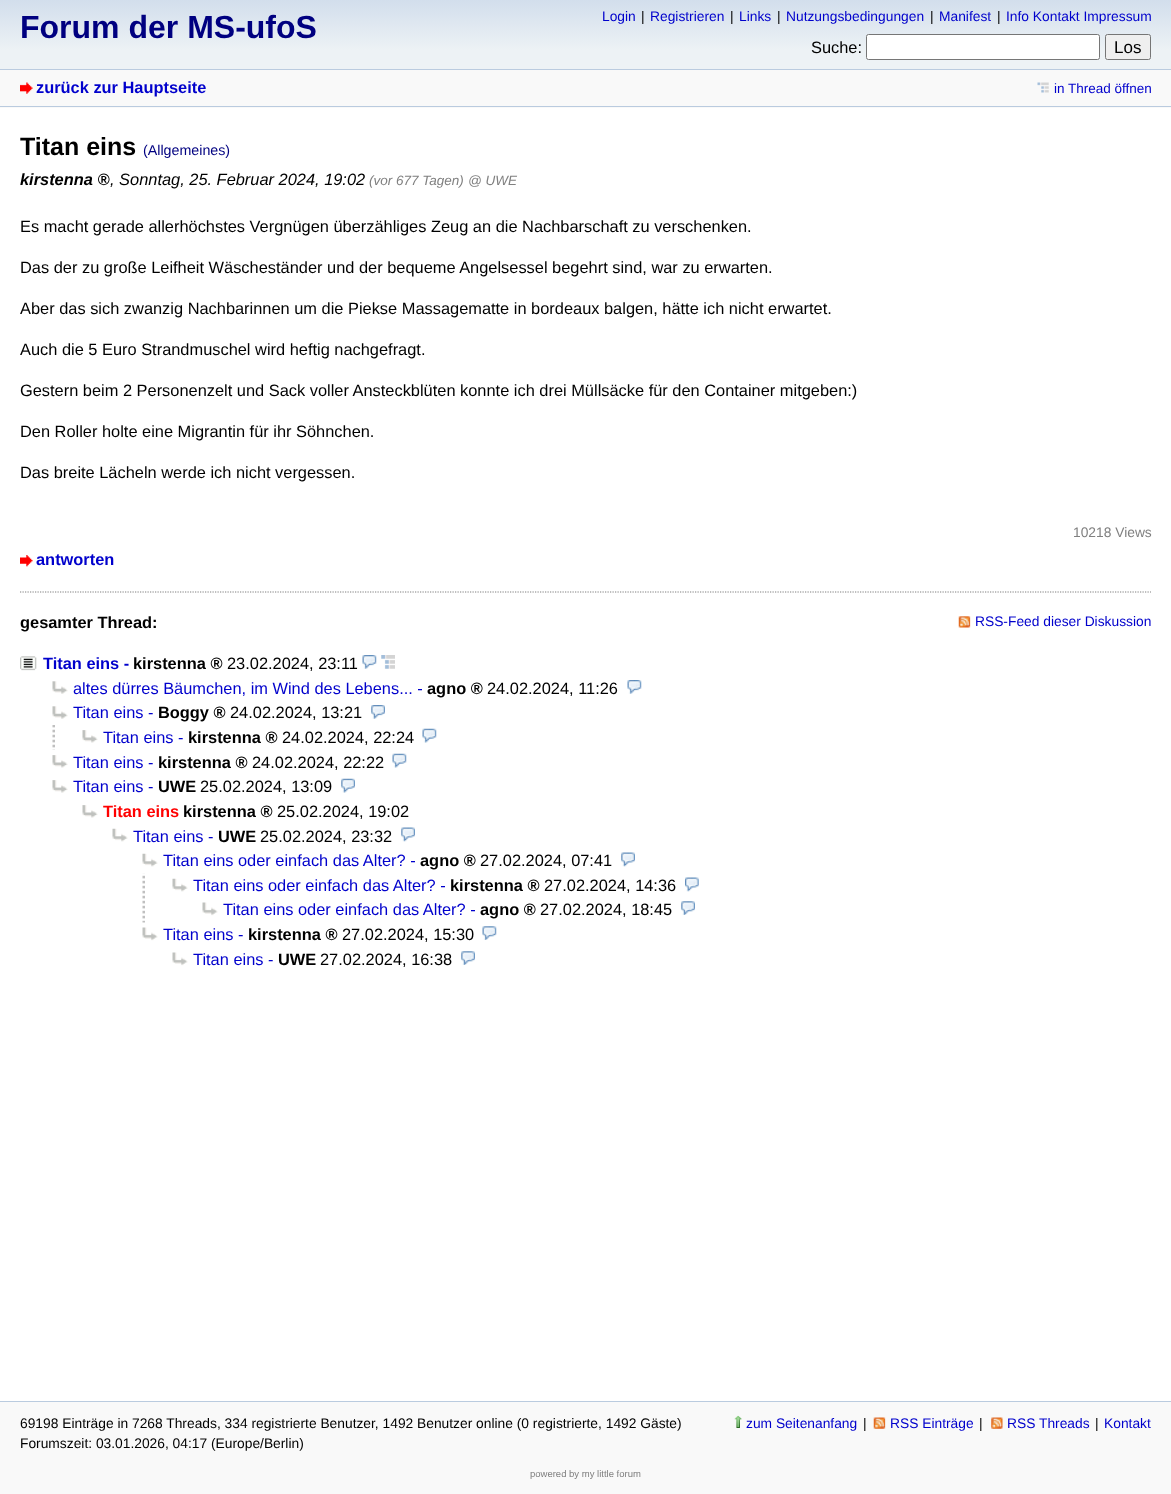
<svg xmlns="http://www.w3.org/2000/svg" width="1171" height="1494">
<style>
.a{font:bold 32px Liberation Sans;fill:#000080}
.b{font:13.8px Liberation Sans;fill:#00c}
.c{font:13.8px Liberation Sans;fill:#000}
.d{font:16.4px Liberation Sans;fill:#000}
.e{font:17px Liberation Sans;fill:#000}
.f{font:bold 16.4px Liberation Sans;fill:#00c}
.g{font:13.5px Liberation Sans;fill:#00c}
.h{font:bold 25px Liberation Sans;fill:#000}
.i{font:14.25px Liberation Sans;fill:#000080}
.j{font:italic bold 16.4px Liberation Sans;fill:#000}
.k{font:italic 16.4px Liberation Sans;fill:#000}
.l{font:italic 13.5px Liberation Sans;fill:#808080}
.m{font:13.8px Liberation Sans;fill:#808080}
.n{font:bold 16.4px Liberation Sans;fill:#000}
.o{font:16.4px Liberation Sans;fill:#00c}
.p{font:bold 16.4px Liberation Sans;fill:#f00}
.q{font:9.5px Liberation Sans;fill:#808080}
</style>
<defs>
<linearGradient id="g1" gradientUnits="userSpaceOnUse" x1="586" y1="0" x2="586" y2="69"><stop offset="0" stop-color="#d2deec"/><stop offset="0.73" stop-color="#edf2f5"/><stop offset="1" stop-color="#edf2f5"/></linearGradient>
</defs>
<rect width="100%" height="100%" fill="#f9f9f9"/>
<path fill="url(#g1)" d="M0 0h1171v69H0z"/>
<rect fill="#fff" stroke="#767676" x="866.5" y="34.5" width="233" height="25" rx="2"/>
<rect fill="#efefef" stroke="#767676" x="1105.5" y="34.5" width="45" height="25" rx="2"/>
<path fill="#bacbdf" d="M0 69h1171v1H0z"/>
<path fill="#bacbdf" d="M0 106h1171v1H0z"/>
<image href="1.png" x="20" y="82" width="13" height="12"/>
<image href="2.png" x="1037" y="82" width="12" height="11"/>
<path fill="#fff" d="M0 108h1171v1293H0z"/>
<image href="3.png" x="20" y="555" width="13" height="12"/>
<path fill="none" stroke="#808080" stroke-width="1.2" stroke-dasharray="1.25 1.25" d="M20 592h1131"/>
<image href="4.png" x="958" y="616" width="13" height="12"/>
<image href="5.png" x="20" y="656" width="17" height="15"/>
<image href="6.png" x="362" y="655" width="15" height="14"/>
<image href="7.png" x="381" y="655" width="14" height="14"/>
<image href="8.png" x="52" y="681" width="16" height="13"/>
<image href="9.png" x="627" y="680" width="15" height="14"/>
<image href="8.png" x="52" y="706" width="16" height="13"/>
<image href="10.png" x="371" y="705" width="14" height="14"/>
<image href="11.png" x="52" y="725" width="3" height="25"/>
<image href="12.png" x="82" y="730" width="16" height="13"/>
<image href="13.png" x="422" y="728" width="15" height="15"/>
<image href="14.png" x="52" y="755" width="16" height="13"/>
<image href="15.png" x="392" y="753" width="15" height="15"/>
<image href="16.png" x="52" y="780" width="16" height="13"/>
<image href="17.png" x="341" y="778" width="14" height="15"/>
<image href="12.png" x="82" y="805" width="16" height="13"/>
<image href="18.png" x="112" y="828" width="16" height="14"/>
<image href="19.png" x="401" y="827" width="14" height="15"/>
<image href="18.png" x="142" y="853" width="16" height="14"/>
<image href="19.png" x="621" y="852" width="14" height="15"/>
<image href="20.png" x="142" y="873" width="3" height="50"/>
<image href="18.png" x="172" y="878" width="16" height="14"/>
<image href="21.png" x="685" y="877" width="14" height="15"/>
<image href="22.png" x="202" y="902" width="16" height="14"/>
<image href="23.png" x="681" y="901" width="14" height="14"/>
<image href="22.png" x="142" y="927" width="16" height="14"/>
<image href="24.png" x="482" y="926" width="15" height="14"/>
<image href="22.png" x="172" y="952" width="16" height="14"/>
<image href="23.png" x="461" y="951" width="14" height="14"/>
<path fill="#bacbdf" d="M0 1401h1171v1H0z"/>
<image href="25.png" x="734" y="1415" width="8" height="13"/>
<image href="26.png" x="873" y="1417" width="13" height="12"/>
<image href="27.png" x="991" y="1417" width="12" height="12"/>
<text class="a" x="20" y="38">Forum der MS-ufoS</text>
<text class="b" x="602" y="21">Login</text>
<text class="c" x="641" y="21">|</text>
<text class="b" x="650" y="21">Registrieren</text>
<text class="c" x="730" y="21">|</text>
<text class="b" x="739" y="21">Links</text>
<text class="c" x="777" y="21">|</text>
<text class="b" x="786" y="21">Nutzungsbedingungen</text>
<text class="c" x="930" y="21">|</text>
<text class="b" x="939" y="21">Manifest</text>
<text class="c" x="997" y="21">|</text>
<text class="b" x="1006" y="21">Info Kontakt Impressum</text>
<text class="d" x="811" y="53">Suche:</text>
<text class="e" x="1114" y="53">Los</text>
<text class="f" x="36" y="93">zurück zur Hauptseite</text>
<text class="g" x="1054" y="93">in Thread öffnen</text>
<text class="h" x="20" y="155">Titan eins</text>
<text class="i" x="143" y="155">(Allgemeines)</text>
<text class="j" x="20" y="185">kirstenna ®</text>
<text class="k" x="110" y="185">, Sonntag, 25. Februar 2024, 19:02</text>
<text class="l" x="369" y="185">(vor 677 Tagen)</text>
<text class="l" x="468" y="185">@ UWE</text>
<text class="d" x="20" y="232">Es macht gerade allerhöchstes Vergnügen überzähliges Zeug an die Nachbarschaft zu verschenken.</text>
<text class="d" x="20" y="273">Das der zu große Leifheit Wäscheständer und der bequeme Angelsessel begehrt sind, war zu erwarten.</text>
<text class="d" x="20" y="314">Aber das sich zwanzig Nachbarinnen um die Piekse Massagematte in bordeaux balgen, hätte ich nicht erwartet.</text>
<text class="d" x="20" y="355">Auch die 5 Euro Strandmuschel wird heftig nachgefragt.</text>
<text class="d" x="20" y="396">Gestern beim 2 Personenzelt und Sack voller Ansteckblüten konnte ich drei Müllsäcke für den Container mitgeben:)</text>
<text class="d" x="20" y="437">Den Roller holte eine Migrantin für ihr Söhnchen.</text>
<text class="d" x="20" y="478">Das breite Lächeln werde ich nicht vergessen.</text>
<text class="m" x="1073" y="537">10218 Views</text>
<text class="f" x="36" y="565">antworten</text>
<text class="n" x="20" y="628">gesamter Thread:</text>
<text class="b" x="975" y="626">RSS-Feed dieser Diskussion</text>
<text class="f" x="43" y="669">Titan eins -</text>
<text class="n" x="133" y="669">kirstenna ®</text>
<text class="d" x="227" y="669">23.02.2024, 23:11</text>
<text class="o" x="73" y="694">altes dürres Bäumchen, im Wind des Lebens... -</text>
<text class="n" x="427" y="694">agno ®</text>
<text class="d" x="487" y="694">24.02.2024, 11:26</text>
<text class="o" x="73" y="718">Titan eins -</text>
<text class="n" x="158" y="718">Boggy ®</text>
<text class="d" x="230" y="718">24.02.2024, 13:21</text>
<text class="o" x="103" y="743">Titan eins -</text>
<text class="n" x="188" y="743">kirstenna ®</text>
<text class="d" x="282" y="743">24.02.2024, 22:24</text>
<text class="o" x="73" y="768">Titan eins -</text>
<text class="n" x="158" y="768">kirstenna ®</text>
<text class="d" x="252" y="768">24.02.2024, 22:22</text>
<text class="o" x="73" y="792">Titan eins -</text>
<text class="n" x="158" y="792">UWE</text>
<text class="d" x="200" y="792">25.02.2024, 13:09</text>
<text class="p" x="103" y="817">Titan eins</text>
<text class="n" x="183" y="817">kirstenna ®</text>
<text class="d" x="277" y="817">25.02.2024, 19:02</text>
<text class="o" x="133" y="842">Titan eins -</text>
<text class="n" x="218" y="842">UWE</text>
<text class="d" x="260" y="842">25.02.2024, 23:32</text>
<text class="o" x="163" y="866">Titan eins oder einfach das Alter? -</text>
<text class="n" x="420" y="866">agno ®</text>
<text class="d" x="480" y="866">27.02.2024, 07:41</text>
<text class="o" x="193" y="891">Titan eins oder einfach das Alter? -</text>
<text class="n" x="450" y="891">kirstenna ®</text>
<text class="d" x="544" y="891">27.02.2024, 14:36</text>
<text class="o" x="223" y="915">Titan eins oder einfach das Alter? -</text>
<text class="n" x="480" y="915">agno ®</text>
<text class="d" x="540" y="915">27.02.2024, 18:45</text>
<text class="o" x="163" y="940">Titan eins -</text>
<text class="n" x="248" y="940">kirstenna ®</text>
<text class="d" x="342" y="940">27.02.2024, 15:30</text>
<text class="o" x="193" y="965">Titan eins -</text>
<text class="n" x="278" y="965">UWE</text>
<text class="d" x="320" y="965">27.02.2024, 16:38</text>
<text class="c" x="20" y="1428">69198 Einträge in 7268 Threads, 334 registrierte Benutzer, 1492 Benutzer online (0 registrierte, 1492 Gäste)</text>
<text class="c" x="20" y="1448">Forumszeit: 03.01.2026, 04:17 (Europe/Berlin)</text>
<text class="b" x="746" y="1428">zum Seitenanfang</text>
<text class="c" x="863" y="1428">|</text>
<text class="b" x="890" y="1428">RSS Einträge</text>
<text class="c" x="979" y="1428">|</text>
<text class="b" x="1007" y="1428">RSS Threads</text>
<text class="c" x="1095" y="1428">|</text>
<text class="b" x="1104" y="1428">Kontakt</text>
<text class="q" x="530" y="1477">powered by my little forum</text>
</svg>
